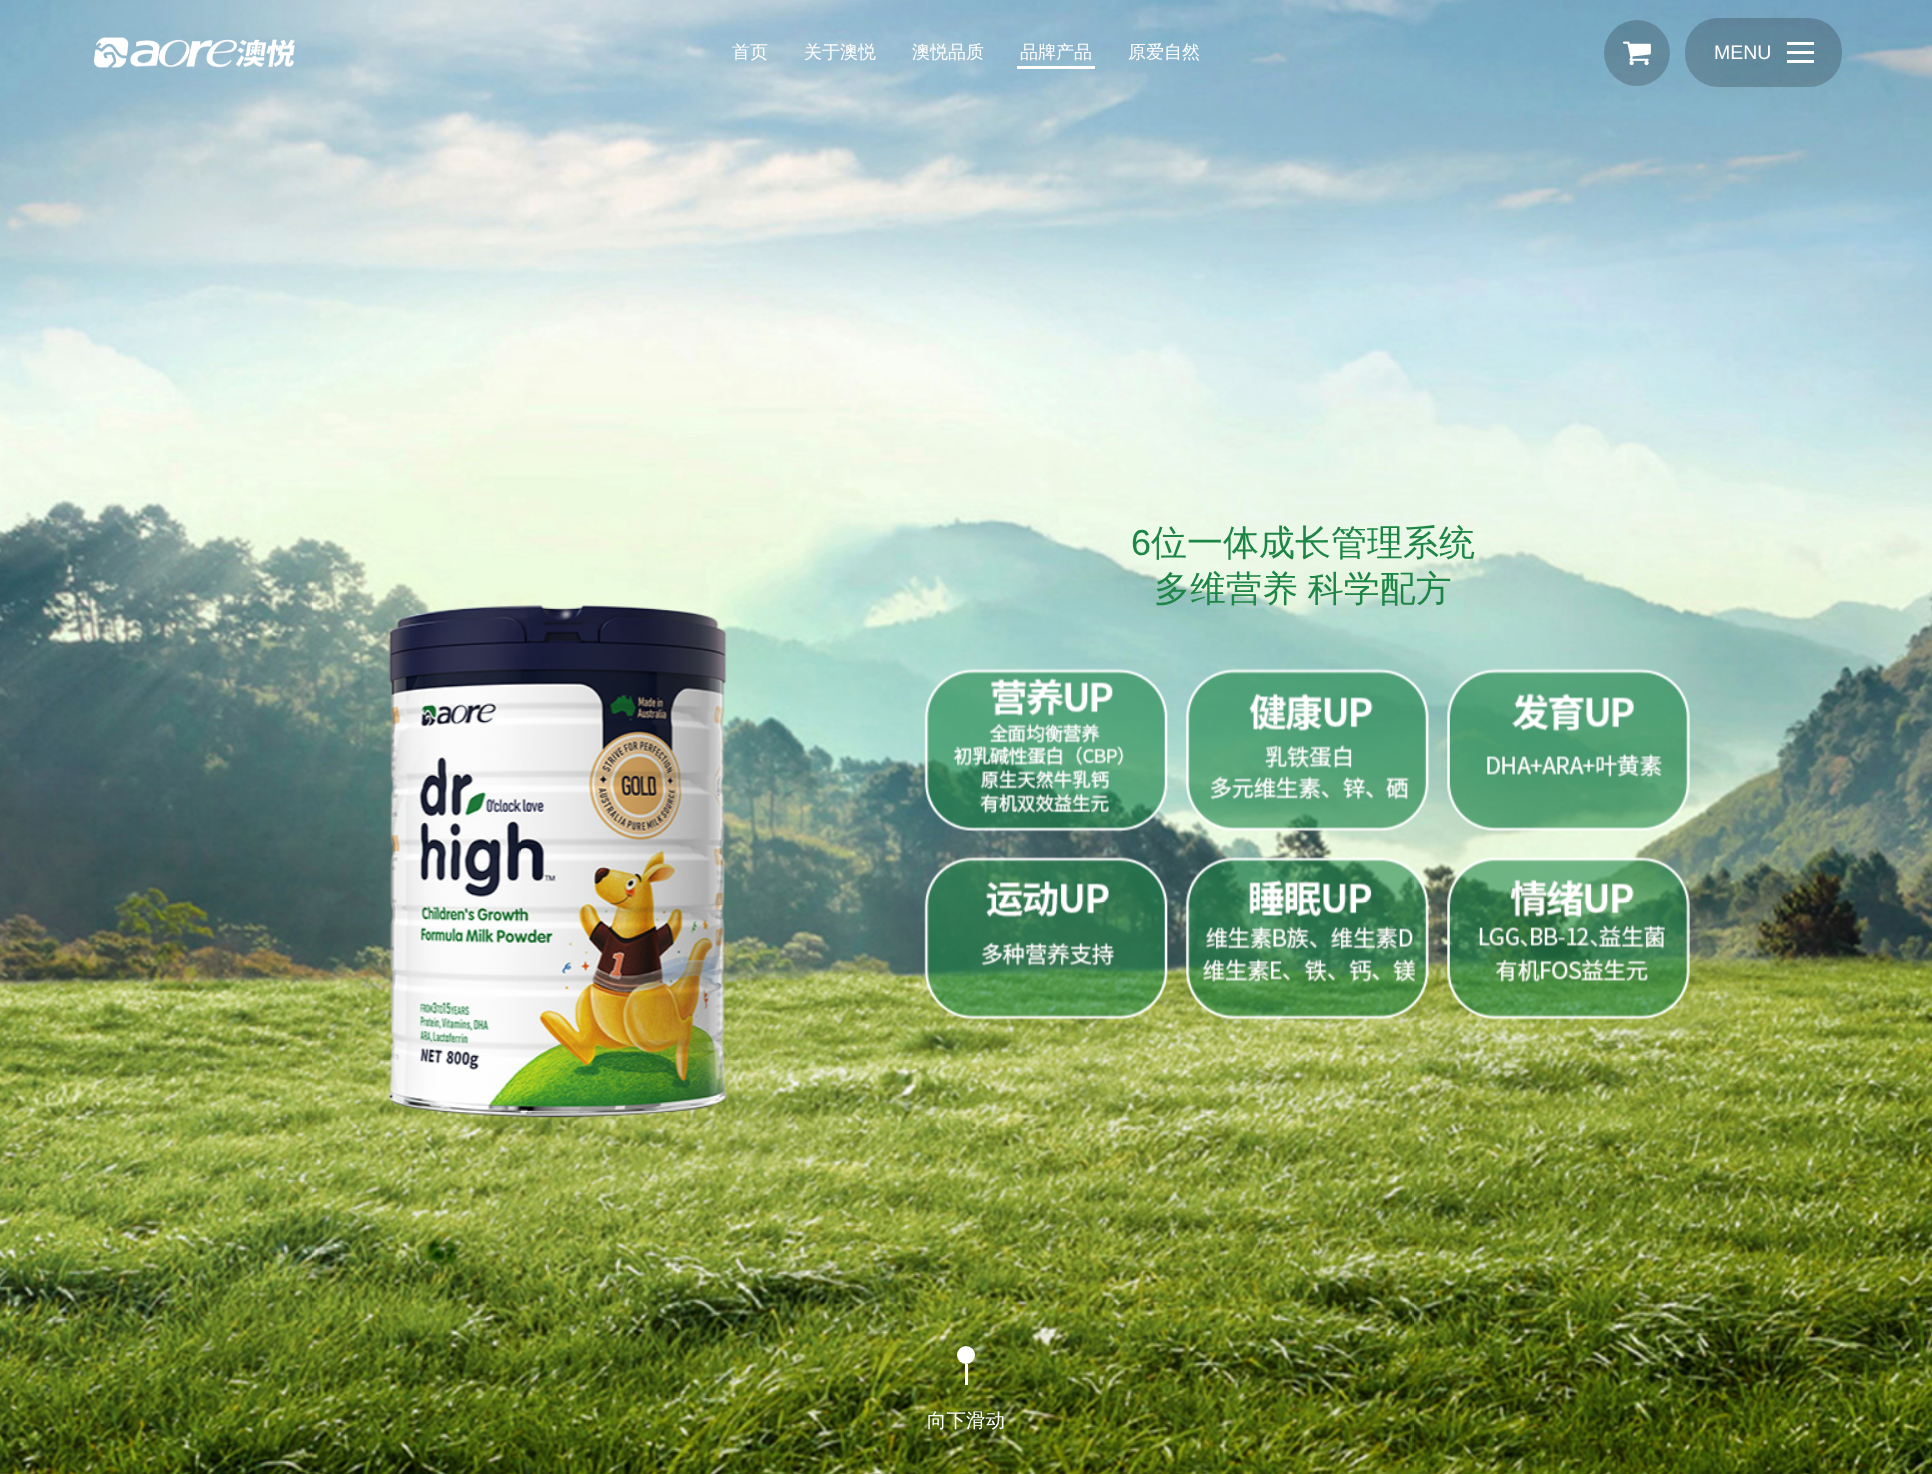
<svg xmlns="http://www.w3.org/2000/svg" width="1932" height="1474">
<style>
.a{font:500 18px WenQuanYi Zen Hei;fill:#fff}
.b{font:19.5px Liberation Sans;fill:#fff}
.c{font:36px Liberation Sans;fill:#1d8646}
.d{font:500 36px WenQuanYi Zen Hei;fill:#1d8646}
.e{font:500 19.5px WenQuanYi Zen Hei;fill:#fff}
</style>
<rect width="100%" height="100%" fill="#fff"/>
<image href="3.png" x="0" y="0" width="1932" height="1474"/>
<image href="1.png" x="94" y="37" width="201" height="31"/>
<path fill="#fff" d="M1017 66h78v3H1017z"/>
<circle fill="#00000033" cx="1637" cy="53" r="33"/>
<image href="2.png" x="1623" y="41" width="28" height="25"/>
<rect fill="#00000033" x="1685" y="18" width="157" height="69" rx="33"/>
<path fill="#fff" d="M1787 51h27v3H1787z"/>
<path fill="#fff" d="M1787 42h27v3H1787z"/>
<path fill="#fff" d="M1787 60h27v3H1787z"/>
<image href="4.png" x="924" y="668" width="766" height="352"/>
<image href="5.png" x="388" y="605" width="340" height="513"/>
<circle fill="#fff" cx="966" cy="1355" r="9"/>
<path fill="#fff" d="M965 1364h3v21H965z"/>
<text class="a" x="732" y="58">首页</text>
<text class="a" x="804" y="58">关于澳悦</text>
<text class="a" x="912" y="58">澳悦品质</text>
<text class="a" x="1020" y="58">品牌产品</text>
<text class="a" x="1128" y="58">原爱自然</text>
<text class="b" x="1714" y="59">MENU</text>
<text class="c" x="1131" y="555">6</text>
<text class="d" x="1151" y="555">位一体成长管理系统</text>
<text class="d" x="1154" y="601" word-spacing="-1">多维营养 科学配方</text>
<text class="e" x="927" y="1427">向下滑动</text>
</svg>
